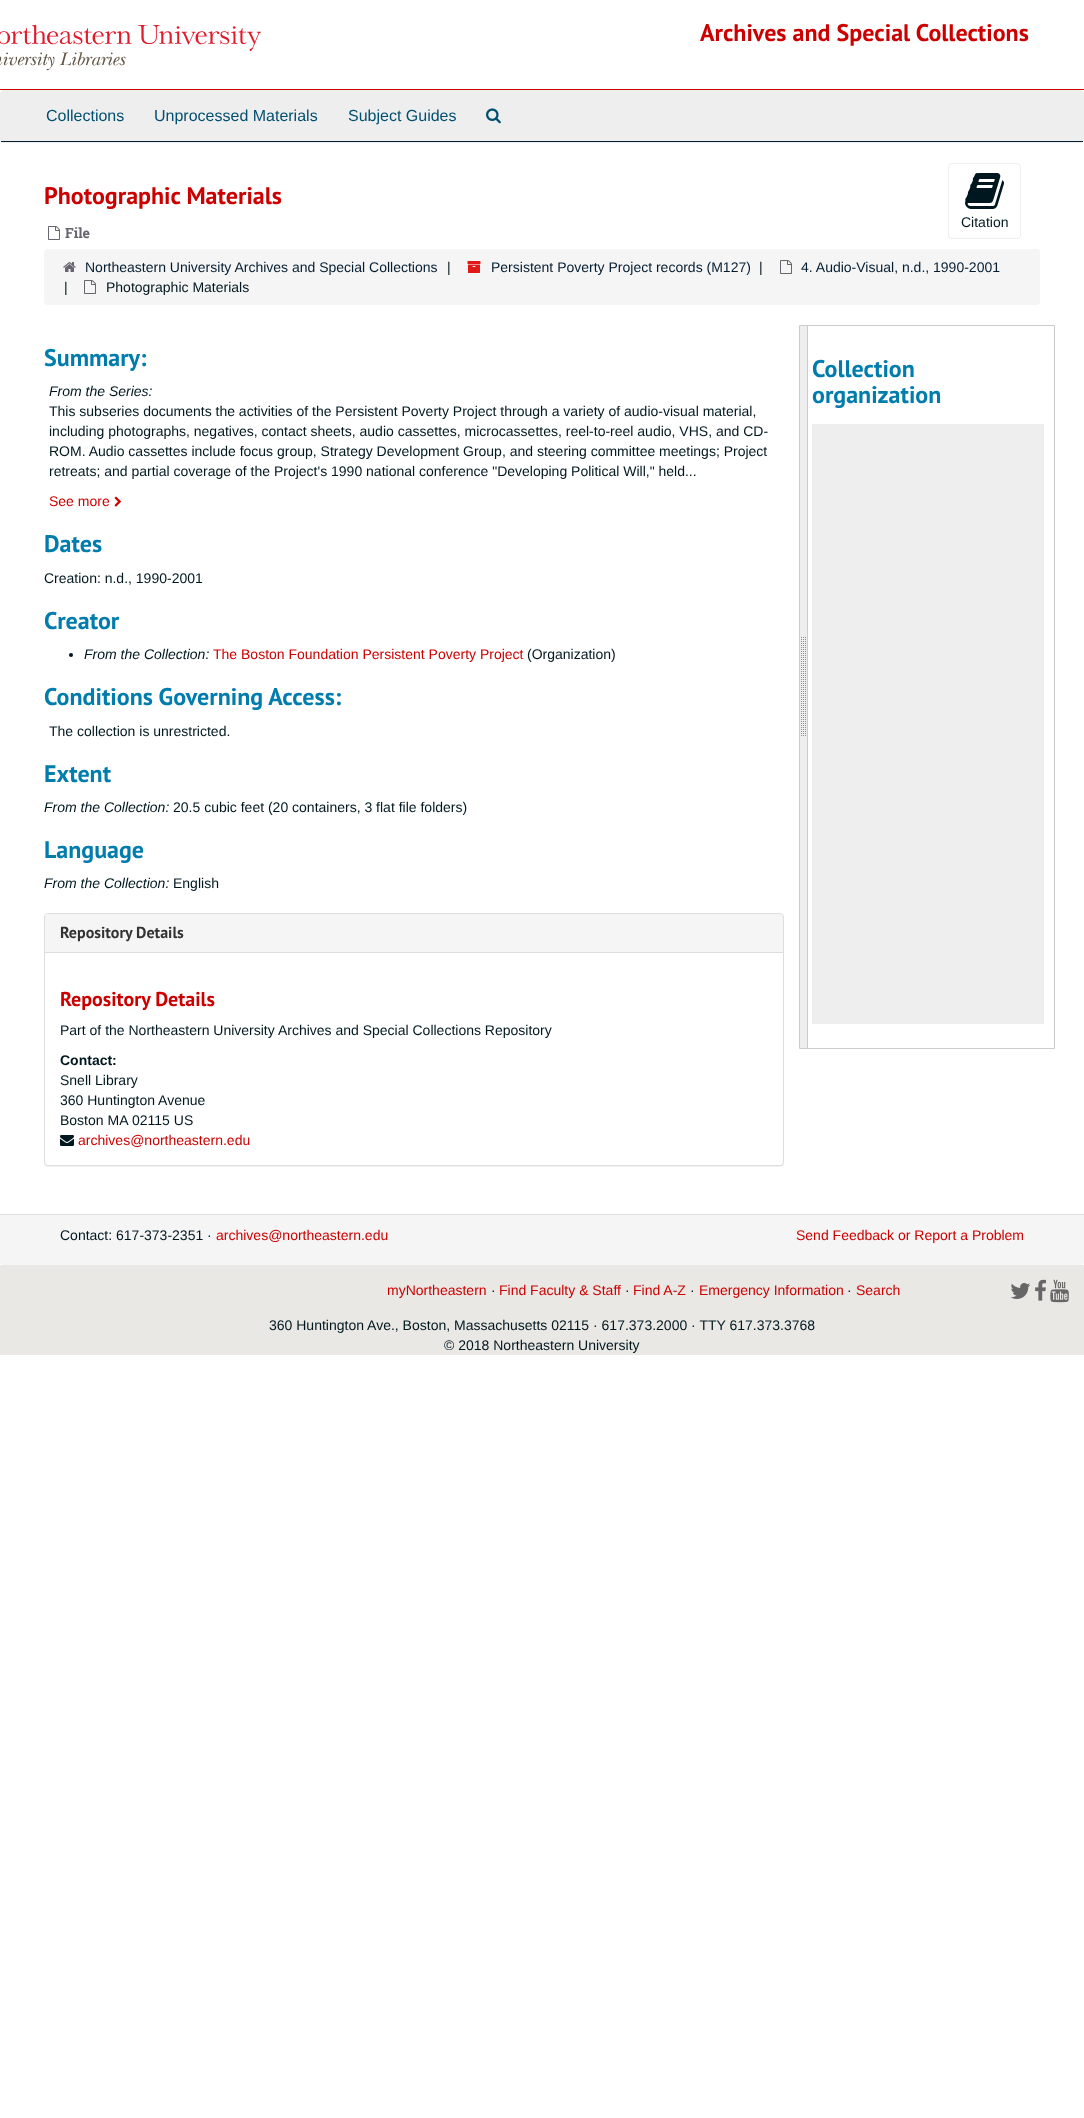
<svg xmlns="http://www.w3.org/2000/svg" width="1084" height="2118">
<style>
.a{font:bold 24px PT Sans;fill:#c00}
.b{font:16px Liberation Sans;fill:#004f6f}
.c{font:bold 14px Roboto Slab;fill:#69656f}
.d{font:14px Liberation Sans;fill:#00171f}
.e{font:14px Liberation Sans;fill:#041c2f}
.f{font:bold 24px PT Sans;fill:#007cad}
.g{font:italic 14px Liberation Sans;fill:#00171f}
.h{font:14px Liberation Sans;fill:#c00}
.i{font:bold 16px PT Sans;fill:#333}
.j{font:bold 20px PT Sans;fill:#c00}
.k{font:bold 14px Liberation Sans;fill:#00171f}
</style>
<rect width="100%" height="100%" fill="#fff"/>
<path fill="#c00" d="M0 89h1084v1H0z"/>
<image href="1.png" x="0" y="24" width="261" height="47"/>
<rect fill="#eee" stroke="#eee" x="0.5" y="90.5" width="1083" height="52" rx="3.5"/>
<path fill="#041c2f" d="M1 141h1082v1H1z"/>
<image href="2.png" x="486" y="108" width="15" height="16"/>
<image href="3.png" x="48" y="226" width="12" height="14"/>
<rect fill="none" stroke="#eee" x="948.5" y="163.5" width="72" height="75" rx="3.5"/>
<image href="4.png" x="965" y="173" width="39" height="36"/>
<rect fill="#f5f5f5" x="44" y="249" width="996" height="56" rx="4"/>
<image href="5.png" x="63" y="262" width="13" height="10"/>
<image href="6.png" x="467" y="261" width="14" height="12"/>
<image href="7.png" x="780" y="260" width="12" height="14"/>
<image href="7.png" x="84" y="280" width="12" height="14"/>
<image href="8.png" x="114" y="496" width="7" height="11"/>
<circle fill="#00171f" cx="71" cy="655" r="2"/>
<rect fill="#0000000d" filter="blur(0.5px)" x="44" y="914" width="740" height="253" rx="4"/>
<rect fill="#fff" stroke="#ddd" x="44.5" y="913.5" width="739" height="252" rx="3.5"/>
<path fill="#f5f5f5" d="M48 914h732c1.5 0 3 1.5 3 3v35h-738v-35c0-1.5 1.5-3 3-3z"/>
<path fill="#ddd" d="M45 952h738v1H45z"/>
<image href="9.png" x="60" y="1135" width="14" height="11"/>
<path fill="none" stroke="#ccc" d="M799.5 325.5h255v723H799.5z"/>
<path fill="#eee" d="M800 326h7v722H800z"/>
<image href="10.png" x="801" y="637" width="5" height="99"/>
<path fill="#ccc" d="M807 326h1v722H807z"/>
<path fill="#eee" d="M812 424h232v600H812z"/>
<path fill="#f5f5f5" d="M0 1214h1084v48c0 1.5-1.5 3-3 3h-1078c-1.5 0-3-1.5-3-3z"/>
<path fill="#ddd" d="M0 1214h1084v1H0z"/>
<path fill="#e9e8e5" d="M0 1265h1084v90H0z"/>
<image href="11.png" x="1010" y="1283" width="20" height="16"/>
<image href="12.png" x="1035" y="1279" width="11" height="22"/>
<image href="13.png" x="1050" y="1279" width="19" height="24"/>
<text class="a" x="700" y="41">Archives and Special Collections</text>
<text class="b" x="46" y="121">Collections</text>
<text class="b" x="154" y="121">Unprocessed Materials</text>
<text class="b" x="348" y="121">Subject Guides</text>
<text class="a" x="44" y="204">Photographic Materials</text>
<text class="c" x="65" y="238">File</text>
<text class="d" x="961" y="227">Citation</text>
<text class="e" x="85" y="272">Northeastern University Archives and Special Collections</text>
<text class="d" x="447" y="272">|</text>
<text class="e" x="491" y="272">Persistent Poverty Project records (M127)</text>
<text class="d" x="759" y="272">|</text>
<text class="e" x="801" y="272">4. Audio-Visual, n.d., 1990-2001</text>
<text class="d" x="64" y="292">|</text>
<text class="d" x="106" y="292">Photographic Materials</text>
<text class="f" x="44" y="366">Summary:</text>
<text class="g" x="49" y="396">From the Series:</text>
<text class="d" x="49" y="416">This subseries documents the activities of the Persistent Poverty Project through a variety of audio-visual material,</text>
<text class="d" x="49" y="436">including photographs, negatives, contact sheets, audio cassettes, microcassettes, reel-to-reel audio, VHS, and CD-</text>
<text class="d" x="49" y="456">ROM. Audio cassettes include focus group, Strategy Development Group, and steering committee meetings; Project</text>
<text class="d" x="49" y="476">retreats; and partial coverage of the Project's 1990 national conference "Developing Political Will," held...</text>
<text class="h" x="49" y="506">See more</text>
<text class="f" x="44" y="552">Dates</text>
<text class="d" x="44" y="583">Creation: n.d., 1990-2001</text>
<text class="f" x="44" y="629">Creator</text>
<text class="g" x="84" y="659">From the Collection:</text>
<text class="h" x="213" y="659">The Boston Foundation Persistent Poverty Project</text>
<text class="d" x="527" y="659">(Organization)</text>
<text class="f" x="44" y="705">Conditions Governing Access:</text>
<text class="d" x="49" y="736">The collection is unrestricted.</text>
<text class="f" x="44" y="782">Extent</text>
<text class="g" x="44" y="812">From the Collection:</text>
<text class="d" x="173" y="812">20.5 cubic feet (20 containers, 3 flat file folders)</text>
<text class="f" x="44" y="858">Language</text>
<text class="g" x="44" y="888">From the Collection:</text>
<text class="d" x="173" y="888">English</text>
<text class="i" x="60" y="938">Repository Details</text>
<text class="j" x="60" y="1006">Repository Details</text>
<text class="d" x="60" y="1035">Part of the Northeastern University Archives and Special Collections Repository</text>
<text class="k" x="60" y="1065">Contact:</text>
<text class="d" x="60" y="1085">Snell Library</text>
<text class="d" x="60" y="1105">360 Huntington Avenue</text>
<text class="d" x="60" y="1125">Boston MA</text>
<text class="d" x="132" y="1125">02115 US</text>
<text class="h" x="78" y="1145">archives@northeastern.edu</text>
<text class="f" x="812" y="377">Collection</text>
<text class="f" x="812" y="403">organization</text>
<text class="d" x="60" y="1240">Contact: 617-373-2351 ·</text>
<text class="h" x="216" y="1240">archives@northeastern.edu</text>
<text class="h" x="796" y="1240">Send Feedback or Report a Problem</text>
<text class="h" x="387" y="1295">myNortheastern</text>
<text class="d" x="491" y="1295">·</text>
<text class="h" x="499" y="1295">Find Faculty &amp; Staff</text>
<text class="d" x="625" y="1295">·</text>
<text class="h" x="633" y="1295">Find A-Z</text>
<text class="d" x="690" y="1295">·</text>
<text class="h" x="699" y="1295">Emergency Information</text>
<text class="d" x="847" y="1295">·</text>
<text class="h" x="856" y="1295">Search</text>
<text class="d" x="269" y="1330">360 Huntington Ave., Boston, Massachusetts 02115 · 617.373.2000 · TTY 617.373.3768</text>
<text class="d" x="444" y="1350">© 2018 Northeastern University</text>
</svg>
